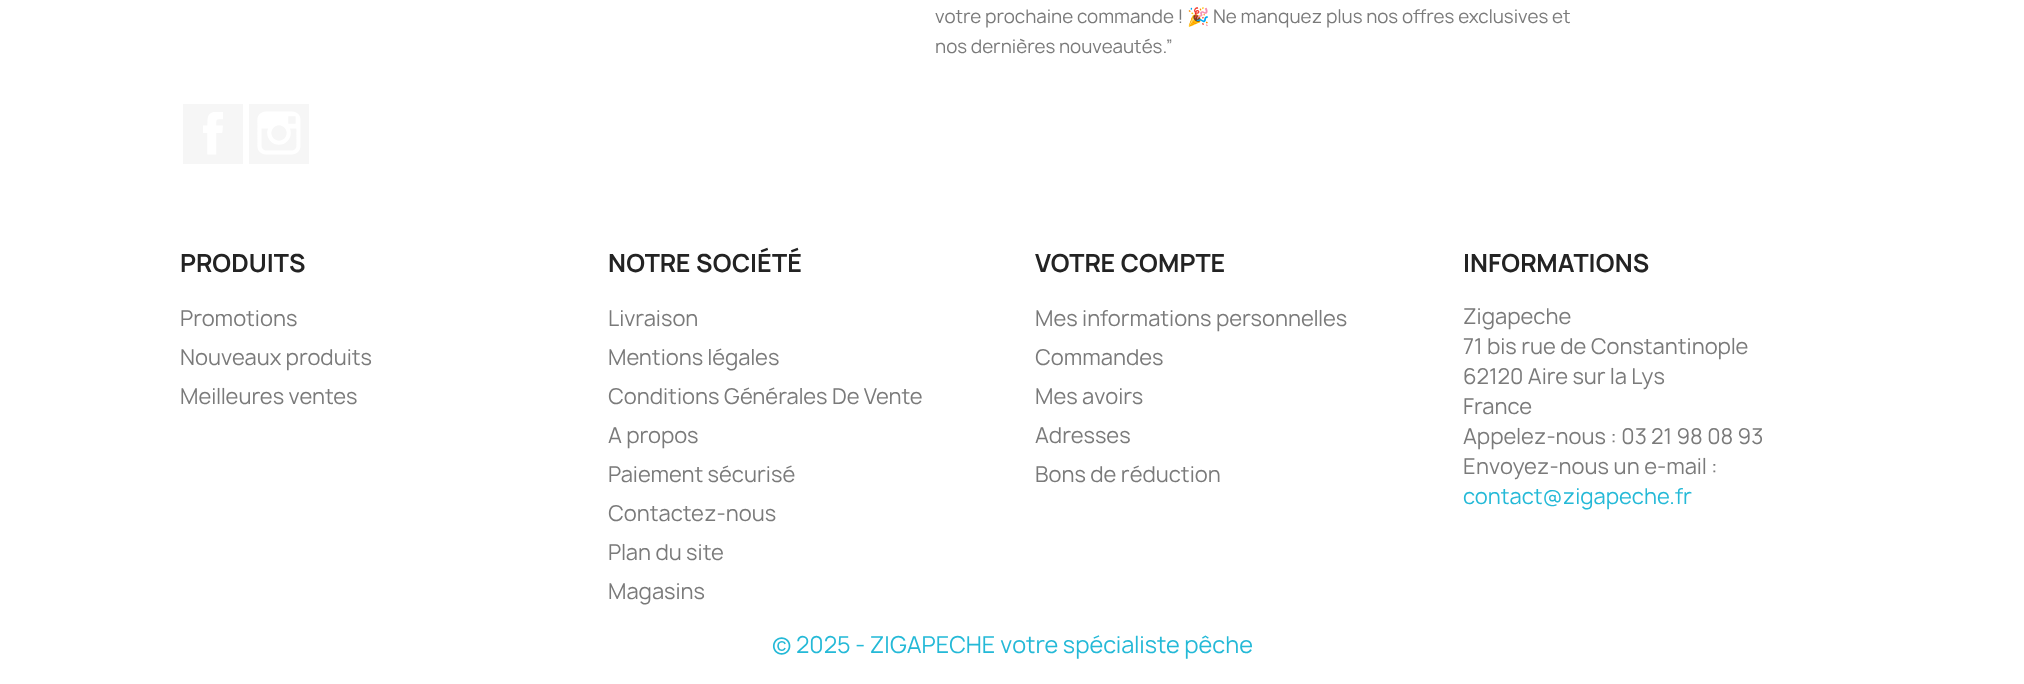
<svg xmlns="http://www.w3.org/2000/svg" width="2024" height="684">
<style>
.a{font:18px Manrope;fill:#7a7a7a}
.b{font:18px Noto Color Emoji;fill:#7a7a7a}
.c{font:bold 24px Manrope;fill:#232323}
.d{font:21px Manrope;fill:#7a7a7a}
.e{font:21px Manrope;fill:#24b9d7}
.f{font:22.5px Manrope;fill:#24b9d7}
</style>
<rect width="100%" height="100%" fill="#fff"/>
<path fill="#f6f6f6" d="M183 104h60v60H183z"/>
<image href="1.png" x="203" y="112" width="20" height="43"/>
<path fill="#f6f6f6" d="M249 104h60v60H249z"/>
<image href="2.png" x="257" y="111" width="44" height="44"/>
<text class="a" x="935" y="23">votre prochaine commande !</text>
<text class="b" x="1187" y="23">🎉</text>
<text class="a" x="1213" y="23">Ne manquez plus nos offres exclusives et</text>
<text class="a" x="935" y="53">nos dernières nouveautés.”</text>
<text class="c" x="180" y="272">PRODUITS</text>
<text class="d" x="180" y="326">Promotions</text>
<text class="d" x="180" y="365">Nouveaux produits</text>
<text class="d" x="180" y="404">Meilleures ventes</text>
<text class="c" x="608" y="272">NOTRE SOCIÉTÉ</text>
<text class="d" x="608" y="326">Livraison</text>
<text class="d" x="608" y="365">Mentions légales</text>
<text class="d" x="608" y="404">Conditions Générales De Vente</text>
<text class="d" x="608" y="443">A propos</text>
<text class="d" x="608" y="482">Paiement sécurisé</text>
<text class="d" x="608" y="521">Contactez-nous</text>
<text class="d" x="608" y="560">Plan du site</text>
<text class="d" x="608" y="599">Magasins</text>
<text class="c" x="1035" y="272">VOTRE COMPTE</text>
<text class="d" x="1035" y="326">Mes informations personnelles</text>
<text class="d" x="1035" y="365">Commandes</text>
<text class="d" x="1035" y="404">Mes avoirs</text>
<text class="d" x="1035" y="443">Adresses</text>
<text class="d" x="1035" y="482">Bons de réduction</text>
<text class="c" x="1463" y="272">INFORMATIONS</text>
<text class="d" x="1463" y="324">Zigapeche</text>
<text class="d" x="1463" y="354">71 bis rue de Constantinople</text>
<text class="d" x="1463" y="384">62120 Aire sur la Lys</text>
<text class="d" x="1463" y="414">France</text>
<text class="d" x="1463" y="444">Appelez-nous : 03 21 98 08 93</text>
<text class="d" x="1463" y="474">Envoyez-nous un e-mail :</text>
<text class="e" x="1463" y="504">contact@zigapeche.fr</text>
<text class="f" x="772" y="653">© 2025 - ZIGAPECHE votre spécialiste pêche</text>
</svg>
